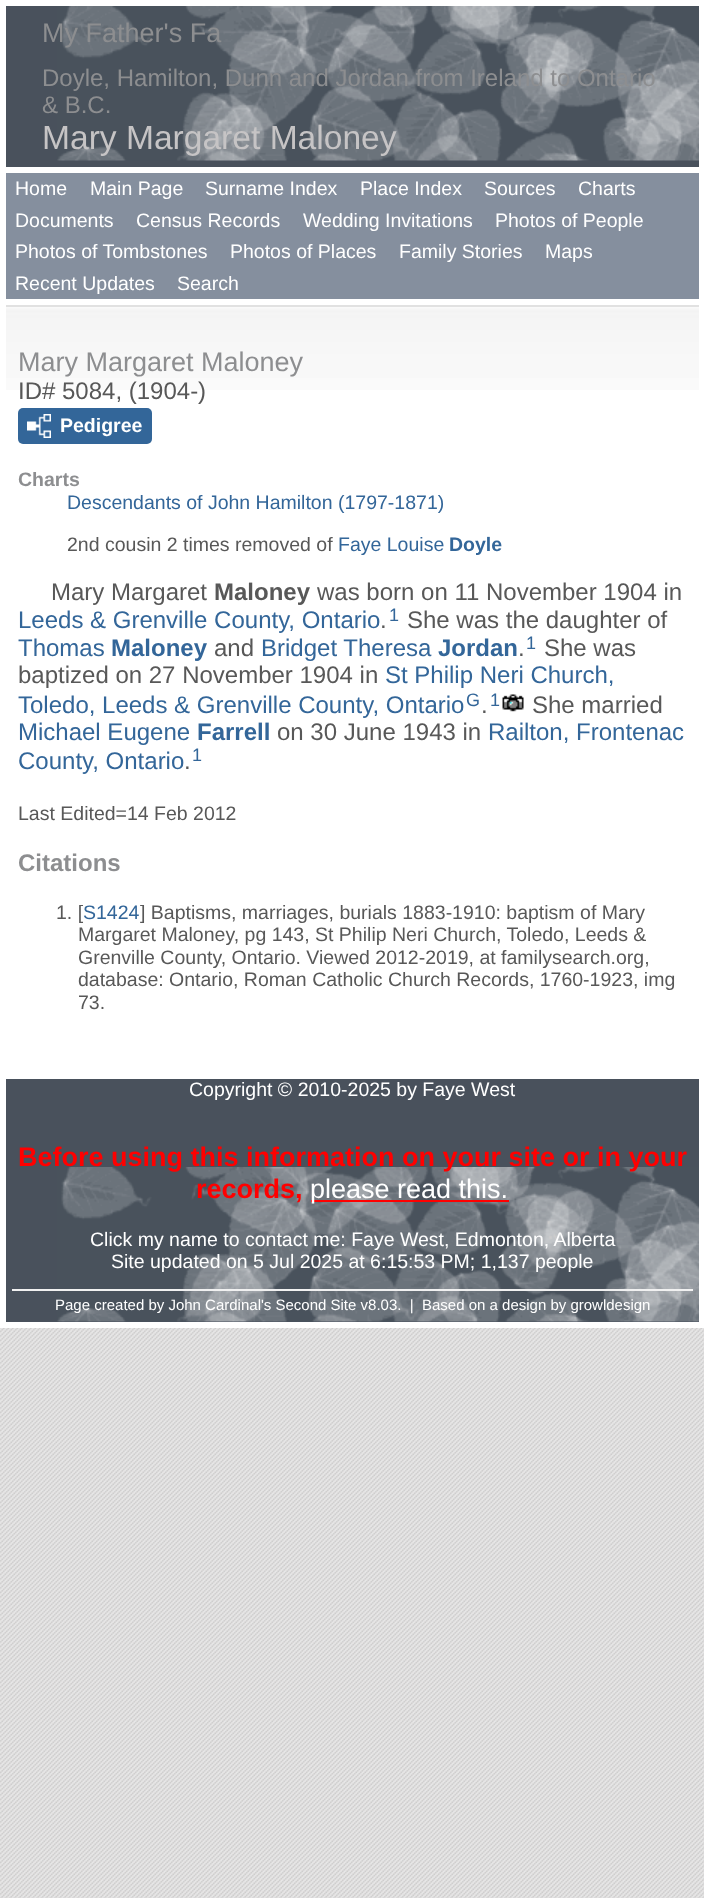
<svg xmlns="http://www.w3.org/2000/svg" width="704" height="1898">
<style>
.a{font:27px Liberation Sans;fill:#8d8e90}
.b{font:24px Liberation Sans;fill:#8d8e90}
.c{font:33.6px Liberation Sans;fill:#c6c4c5}
.d{font:19.5px Liberation Sans;fill:#fff}
.e{font:24px Liberation Sans;fill:#585858}
.f{font:bold 19.5px Liberation Sans;fill:#fff}
.g{font:bold 19.5px Liberation Sans;fill:#8d8e90}
.h{font:19.5px Liberation Sans;fill:#369}
.i{font:19.5px Liberation Sans;fill:#585858}
.j{font:bold 19.5px Liberation Sans;fill:#369}
.k{font:bold 24px Liberation Sans;fill:#585858}
.l{font:24px Liberation Sans;fill:#369}
.m{font:18px Liberation Sans;fill:#369}
.n{font:bold 24px Liberation Sans;fill:#369}
.o{font:bold 24px Liberation Sans;fill:#8d8e90}
.p{font:bold 27px Liberation Sans;fill:#f00}
.q{font:27px Liberation Sans;fill:#fff}
.r{font:15px Liberation Sans;fill:#fff}
</style>
<rect width="100%" height="100%" fill="#fff"/>
<image href="1.png" x="0" y="1328" width="704" height="570"/>
<path fill="#49515c" d="M6 6h693v161H6z"/>
<image href="2.png" x="57" y="6" width="642" height="155"/>
<path fill="#858f9e" d="M6 173h693v126H6z"/>
<image href="3.png" x="6" y="307" width="693" height="83"/>
<path fill="#e1e1e1" d="M6 305h693v2H6z"/>
<rect fill="#369" x="18" y="408" width="134" height="36" rx="5"/>
<image href="4.png" x="27" y="414" width="24" height="24"/>
<image href="5.png" x="502" y="694" width="22" height="18"/>
<path fill="#49515c" d="M6 1079h693v243H6z"/>
<image href="2.png" x="57" y="1167" width="642" height="155"/>
<path fill="#f00" d="M311 1200h198v2H311z"/>
<path fill="#f1f1f1" d="M12 1289h681v2H12z"/>
<text class="a" x="42" y="42">My Father's Fa</text>
<text class="b" x="42" y="86">Doyle, Hamilton, Dunn and Jordan from Ireland to Ontario</text>
<text class="b" x="42" y="113">&amp; B.C.</text>
<text class="c" x="42" y="149">Mary Margaret Maloney</text>
<text class="d" x="15" y="195">Home</text>
<text class="d" x="90" y="195">Main Page</text>
<text class="d" x="205" y="195">Surname Index</text>
<text class="d" x="360" y="195">Place Index</text>
<text class="d" x="484" y="195">Sources</text>
<text class="d" x="578" y="195">Charts</text>
<text class="d" x="15" y="227">Documents</text>
<text class="d" x="136" y="227">Census Records</text>
<text class="d" x="303" y="227">Wedding Invitations</text>
<text class="d" x="495" y="227">Photos of People</text>
<text class="d" x="15" y="258">Photos of Tombstones</text>
<text class="d" x="230" y="258">Photos of Places</text>
<text class="d" x="399" y="258">Family Stories</text>
<text class="d" x="545" y="258">Maps</text>
<text class="d" x="15" y="290">Recent Updates</text>
<text class="d" x="177" y="290">Search</text>
<text class="a" x="18" y="371">Mary Margaret Maloney</text>
<text class="e" x="18" y="399">ID# 5084, (1904-)</text>
<text class="f" x="60" y="432">Pedigree</text>
<text class="g" x="18" y="486">Charts</text>
<text class="h" x="67" y="509">Descendants of John Hamilton (1797-1871)</text>
<text class="i" x="67" y="551">2nd cousin 2 times removed of</text>
<text class="h" x="338" y="551">Faye Louise</text>
<text class="j" x="449" y="551">Doyle</text>
<text class="e" x="51" y="600">Mary Margaret</text>
<text class="k" x="214" y="600">Maloney</text>
<text class="e" x="317" y="600">was born on 11 November 1904 in</text>
<text class="l" x="18" y="628">Leeds &amp; Grenville County, Ontario</text>
<text class="e" x="380" y="628">.</text>
<text class="m" x="389" y="621">1</text>
<text class="e" x="407" y="628">She was the daughter of</text>
<text class="l" x="18" y="656">Thomas</text>
<text class="n" x="111" y="656">Maloney</text>
<text class="e" x="214" y="656">and</text>
<text class="l" x="261" y="656">Bridget Theresa</text>
<text class="n" x="438" y="656">Jordan</text>
<text class="e" x="518" y="656">.</text>
<text class="m" x="526" y="649">1</text>
<text class="e" x="544" y="656">She was</text>
<text class="e" x="18" y="683">baptized on 27 November 1904 in</text>
<text class="l" x="385" y="683">St Philip Neri Church,</text>
<text class="l" x="18" y="713">Toledo, Leeds &amp; Grenville County, Ontario</text>
<text class="m" x="466" y="706">G</text>
<text class="e" x="481" y="713">.</text>
<text class="m" x="490" y="706">1</text>
<text class="e" x="532" y="713">She married</text>
<text class="l" x="18" y="740">Michael Eugene</text>
<text class="n" x="197" y="740">Farrell</text>
<text class="e" x="277" y="740">on 30 June 1943 in</text>
<text class="l" x="488" y="740">Railton, Frontenac</text>
<text class="l" x="18" y="769">County, Ontario</text>
<text class="e" x="184" y="769">.</text>
<text class="m" x="192" y="761">1</text>
<text class="i" x="18" y="820">Last Edited=14 Feb 2012</text>
<text class="o" x="18" y="871">Citations</text>
<text class="i" x="56" y="919">1. [</text>
<text class="h" x="83" y="919">S1424</text>
<text class="i" x="140" y="919">] Baptisms, marriages, burials 1883-1910: baptism of Mary</text>
<text class="i" x="78" y="941">Margaret Maloney, pg 143, St Philip Neri Church, Toledo, Leeds &amp;</text>
<text class="i" x="78" y="964">Grenville County, Ontario. Viewed 2012-2019, at familysearch.org,</text>
<text class="i" x="78" y="986">database: Ontario, Roman Catholic Church Records, 1760-1923, img</text>
<text class="i" x="78" y="1009">73.</text>
<text class="d" x="189" y="1096">Copyright © 2010-2025 by Faye West</text>
<text class="p" x="18" y="1166">Before using this information on your site or in your</text>
<text class="p" x="196" y="1198">records,</text>
<text class="q" x="310" y="1198">please read this.</text>
<text class="d" x="90" y="1246">Click my name to contact me: Faye West, Edmonton, Alberta</text>
<text class="d" x="111" y="1268">Site updated on 5 Jul 2025 at 6:15:53 PM; 1,137 people</text>
<text class="r" xml:space="preserve" x="55" y="1310">Page created by John Cardinal's Second Site v8.03.  |  Based on a design by growldesign</text>
</svg>
